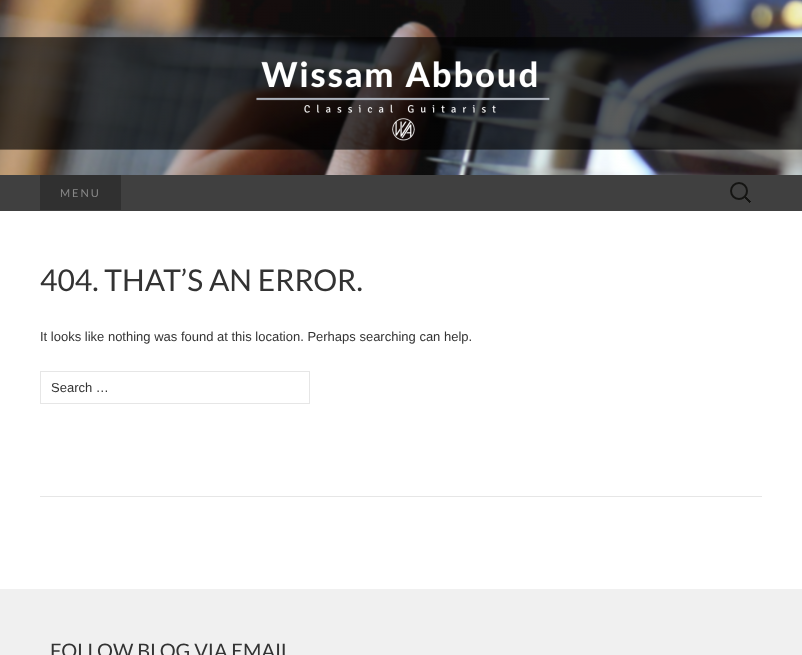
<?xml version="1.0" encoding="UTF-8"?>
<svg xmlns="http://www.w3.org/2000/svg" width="802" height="655">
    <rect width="100%" height="100%" fill="#FFFFFF"/>
    <image x="0" y="0" width="802" height="175" href="img_01.png"/>
    <rect x="0" y="175" width="802" height="36" fill="#404040"/>
    <rect x="40" y="175" width="81" height="35" fill="#303030"/>
    <text x="60" y="197" font-family="Lato" font-size="11" letter-spacing="2" fill="#888888">MENU</text>
    <image x="730" y="182" width="21" height="21" href="img_02.png"/>
    <rect x="40" y="496" width="722" height="1" fill="#E6E6E6"/>
    <text x="40" y="291" font-family="Lato" font-size="30" fill="#333333">404. THAT’S AN ERROR.</text>
    <text x="40" y="341" font-family="Liberation Sans" font-size="13" fill="#333333">It looks like nothing was found at this location. Perhaps searching can help.</text>
    <rect x="40.5" y="371.5" width="269" height="32" fill="none" stroke="#E6E6E6"/>
    <text x="51" y="392" font-family="Liberation Sans" font-size="13" fill="#333333">Search …</text>
    <rect x="0" y="589" width="802" height="66" fill="#F0F0F0"/>
    <text x="50" y="658" font-family="Lato" font-size="20" fill="#333333">FOLLOW BLOG VIA EMAIL</text>
</svg>
